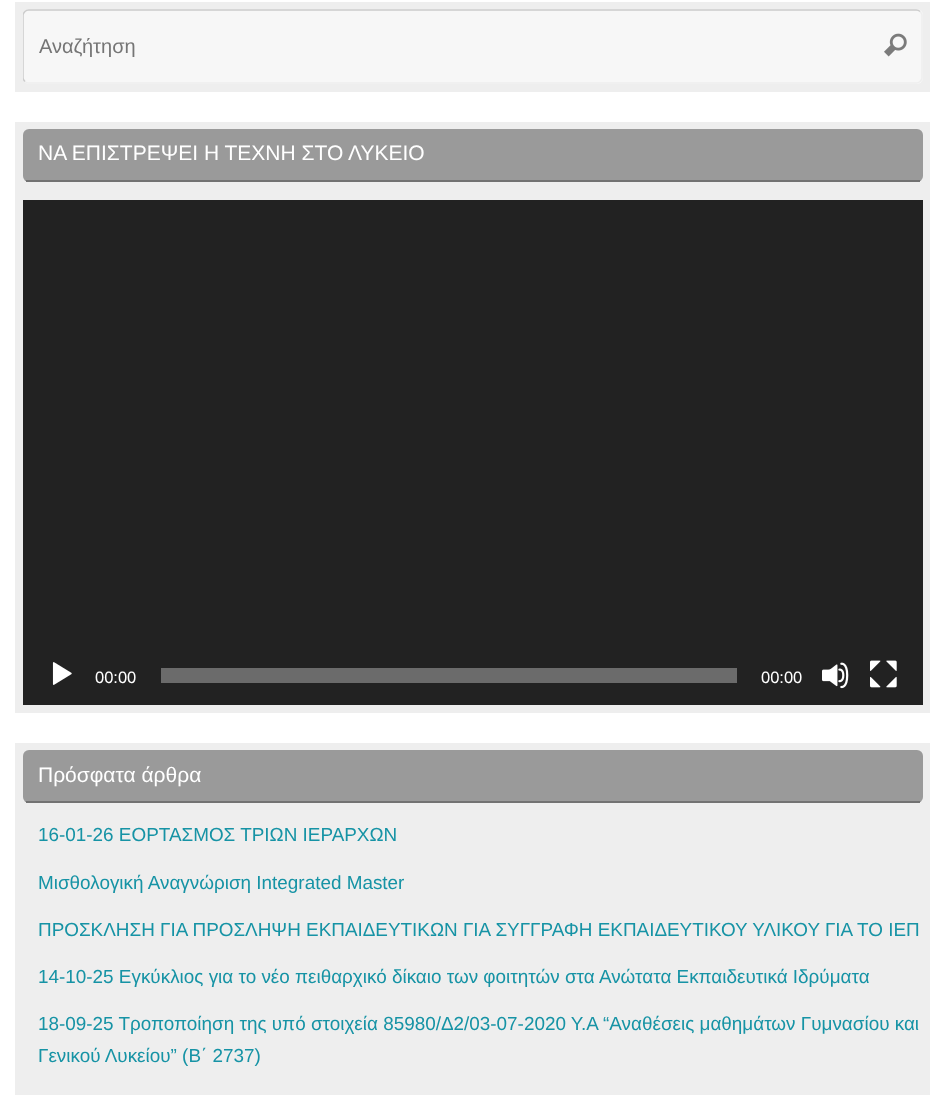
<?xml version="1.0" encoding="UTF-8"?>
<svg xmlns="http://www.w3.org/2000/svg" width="945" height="1107">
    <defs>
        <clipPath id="clip1"><rect x="23" y="9" width="900" height="75"/></clipPath>
        <clipPath id="clip2"><rect x="39" y="35" width="818" height="22"/></clipPath>
    </defs>
    <rect width="100%" height="100%" fill="#FFFFFF"/>
    <rect x="15" y="2" width="915" height="90" fill="#EEEEEE"/>
    <rect x="23" y="9" width="900" height="75" rx="6" fill="#F7F7F7"/>
    <path d="M 920 11.5 C 921 12.5 922 13.5 922 15 V 78 C 922 79.5 921 80.5 920 81.5 C 919 82.5 918 83 916.5 83 H 28.5 C 27 83 26 82.5 25 81.5" fill="none" stroke="#EEEEEE" stroke-width="1.5"/>
    <g clip-path="url(#clip1)">
        <path d="M 25 81.5 C 24 80.5 23 79.5 23 78 V 15 C 23 13.5 24 12.5 25 11.5 C 26 10.5 27 10 28.5 10 H 916.5 C 918 10 919 10.5 920 11.5" fill="none" stroke="#CCCCCC" stroke-width="1.5"/>
    </g>
    <g clip-path="url(#clip2)">
        <text x="39" y="53" font-family="Liberation Sans" font-size="20" fill="#757575">Αναζήτηση</text>
    </g>
    <image x="884" y="33" width="23" height="24" href="img_01.png"/>
    <rect x="15" y="122" width="915" height="591" fill="#EEEEEE"/>
    <rect x="23" y="129" width="900" height="53" rx="6" fill="#9A9A9A"/>
    <rect x="26" y="180" width="894" height="2" fill="#727272"/>
    <text x="38" y="160" font-family="Liberation Sans" font-size="21" fill="#FFFFFF">ΝΑ ΕΠΙΣΤΡΕΨΕΙ Η ΤΕΧΝΗ ΣΤΟ ΛΥΚΕΙΟ</text>
    <rect x="23" y="200" width="900" height="505" fill="#222222"/>
    <image x="52" y="662" width="20" height="23" href="img_02.png"/>
    <text x="95" y="683" font-family="Liberation Sans" font-size="16.5" fill="#FFFFFF">00:00</text>
    <rect x="161" y="668" width="576" height="15" fill="#6B6B6B"/>
    <text x="761" y="683" font-family="Liberation Sans" font-size="16.5" fill="#FFFFFF">00:00</text>
    <image x="822" y="662" width="27" height="27" href="img_03.png"/>
    <image x="870" y="660" width="27" height="28" href="img_04.png"/>
    <rect x="15" y="743" width="915" height="352" fill="#EEEEEE"/>
    <rect x="23" y="750" width="900" height="53" rx="6" fill="#9A9A9A"/>
    <rect x="26" y="801" width="894" height="2" fill="#727272"/>
    <text x="38" y="782" font-family="Liberation Sans" font-size="21" fill="#FFFFFF">Πρόσφατα άρθρα</text>
    <text x="38" y="841" font-family="Liberation Sans" font-size="18.9" fill="#1693A5">16-01-26 ΕΟΡΤΑΣΜΟΣ ΤΡΙΩΝ ΙΕΡΑΡΧΩΝ</text>
    <text x="38" y="889" font-family="Liberation Sans" font-size="18.9" fill="#1693A5">Μισθολογική Αναγνώριση Integrated Master</text>
    <text x="38" y="936" font-family="Liberation Sans" font-size="18.9" fill="#1693A5">ΠΡΟΣΚΛΗΣΗ ΓΙΑ ΠΡΟΣΛΗΨΗ ΕΚΠΑΙΔΕΥΤΙΚΩΝ ΓΙΑ ΣΥΓΓΡΑΦΗ ΕΚΠΑΙΔΕΥΤΙΚΟΥ ΥΛΙΚΟΥ ΓΙΑ ΤΟ ΙΕΠ</text>
    <text x="38" y="983" font-family="Liberation Sans" font-size="18.9" fill="#1693A5">14-10-25 Εγκύκλιος για το νέο πειθαρχικό δίκαιο των φοιτητών στα Ανώτατα Εκπαιδευτικά Ιδρύματα</text>
    <text font-family="Liberation Sans" font-size="18.9" fill="#1693A5">
        <tspan x="38" y="1030">18-09-25 Τροποποίηση της υπό στοιχεία 85980/Δ2/03-07-2020 Υ.Α “Αναθέσεις μαθημάτων Γυμνασίου και</tspan>
        <tspan x="38" y="1062">Γενικού Λυκείου” (Β΄ 2737)</tspan>
    </text>
</svg>
